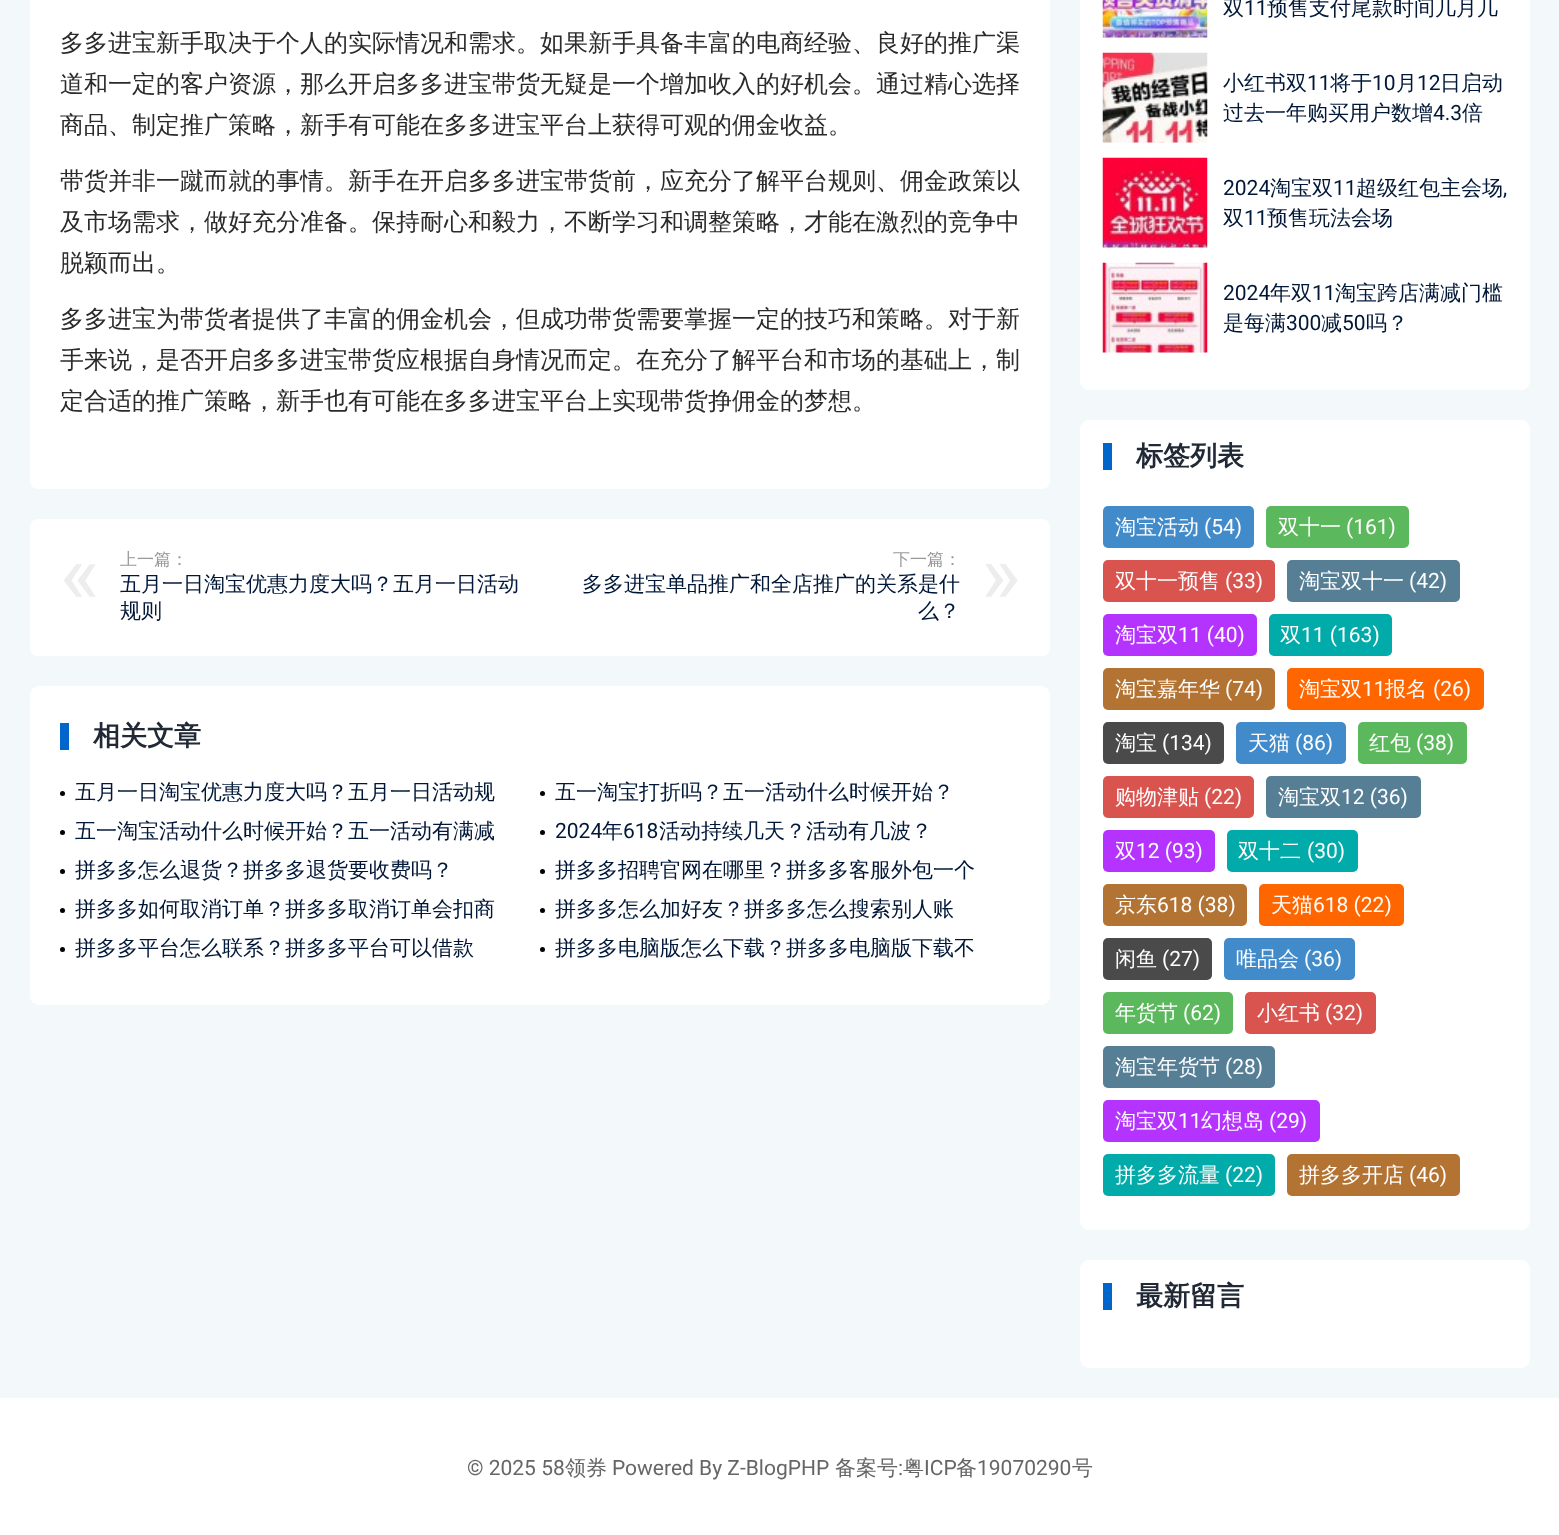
<?xml version="1.0" encoding="UTF-8"?>
<svg xmlns="http://www.w3.org/2000/svg" width="1559" height="1535">
    <rect width="100%" height="100%" fill="#F3F8FB"/>
    <rect x="30" y="-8" width="1020" height="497" rx="8" fill="#FFFFFF"/>
    <text font-family="WenQuanYi Zen Hei" font-size="24" font-weight="500" fill="#2A2A2A">
        <tspan x="60" y="51">多多进宝新手取决于个人的实际情况和需求。如果新手具备丰富的电商经验、良好的推广渠</tspan>
        <tspan x="60" y="92">道和一定的客户资源，那么开启多多进宝带货无疑是一个增加收入的好机会。通过精心选择</tspan>
        <tspan x="60" y="133">商品、制定推广策略，新手有可能在多多进宝平台上获得可观的佣金收益。</tspan>
    </text>
    <text font-family="WenQuanYi Zen Hei" font-size="24" font-weight="500" fill="#2A2A2A">
        <tspan x="60" y="189">带货并非一蹴而就的事情。新手在开启多多进宝带货前，应充分了解平台规则、佣金政策以</tspan>
        <tspan x="60" y="230">及市场需求，做好充分准备。保持耐心和毅力，不断学习和调整策略，才能在激烈的竞争中</tspan>
        <tspan x="60" y="271">脱颖而出。</tspan>
    </text>
    <text font-family="WenQuanYi Zen Hei" font-size="24" font-weight="500" fill="#2A2A2A">
        <tspan x="60" y="327">多多进宝为带货者提供了丰富的佣金机会，但成功带货需要掌握一定的技巧和策略。对于新</tspan>
        <tspan x="60" y="368">手来说，是否开启多多进宝带货应根据自身情况而定。在充分了解平台和市场的基础上，制</tspan>
        <tspan x="60" y="409">定合适的推广策略，新手也有可能在多多进宝平台上实现带货挣佣金的梦想。</tspan>
    </text>
    <rect x="30" y="519" width="1020" height="137" rx="8" fill="#FFFFFF"/>
    <text x="120" y="565" font-family="WenQuanYi Zen Hei" font-size="17" font-weight="500" fill="#999999">上一篇：</text>
    <text x="60" y="603" font-family="Roboto" font-size="84" fill="#EDEDED">«</text>
    <text font-family="WenQuanYi Zen Hei" font-size="21" font-weight="500" fill="#001737">
        <tspan x="120" y="591">五月一日淘宝优惠力度大吗？五月一日活动</tspan>
        <tspan x="120" y="618">规则</tspan>
    </text>
    <text x="893" y="565" font-family="WenQuanYi Zen Hei" font-size="17" font-weight="500" fill="#999999">下一篇：</text>
    <text x="582" y="591" font-family="WenQuanYi Zen Hei" font-size="21" font-weight="500" fill="#001737">多多进宝单品推广和全店推广的关系是什</text>
    <text x="981" y="603" font-family="Roboto" font-size="84" fill="#EDEDED">»</text>
    <text x="918" y="618" font-family="WenQuanYi Zen Hei" font-size="21" font-weight="500" fill="#001737">么？</text>
    <rect x="30" y="686" width="1020" height="319" rx="9" fill="#FFFFFF"/>
    <rect x="60" y="723" width="9" height="27" fill="#0066CC"/>
    <text x="93" y="745" font-family="WenQuanYi Zen Hei" font-size="27" font-weight="700" fill="#202935">相关文章</text>
    <circle cx="62.5" cy="793.5" r="2.5" fill="#000000"/>
    <text x="75" y="799" font-family="WenQuanYi Zen Hei" font-size="21" font-weight="500" fill="#001737">五月一日淘宝优惠力度大吗？五月一日活动规</text>
    <circle cx="542.5" cy="793.5" r="2.5" fill="#000000"/>
    <text x="555" y="799" font-family="WenQuanYi Zen Hei" font-size="21" font-weight="500" fill="#001737">五一淘宝打折吗？五一活动什么时候开始？</text>
    <circle cx="62.5" cy="832.5" r="2.5" fill="#000000"/>
    <text x="75" y="838" font-family="WenQuanYi Zen Hei" font-size="21" font-weight="500" fill="#001737">五一淘宝活动什么时候开始？五一活动有满减</text>
    <circle cx="542.5" cy="832.5" r="2.5" fill="#000000"/>
    <text x="555" y="838" font-family="Roboto" font-size="21" fill="#001737">2024</text>
    <text x="602" y="838" font-family="WenQuanYi Zen Hei" font-size="21" font-weight="500" fill="#001737">年</text>
    <text x="623" y="838" font-family="Roboto" font-size="21" fill="#001737">618</text>
    <text x="659" y="838" font-family="WenQuanYi Zen Hei" font-size="21" font-weight="500" fill="#001737">活动持续几天？活动有几波？</text>
    <circle cx="62.5" cy="871.5" r="2.5" fill="#000000"/>
    <text x="75" y="877" font-family="WenQuanYi Zen Hei" font-size="21" font-weight="500" fill="#001737">拼多多怎么退货？拼多多退货要收费吗？</text>
    <circle cx="542.5" cy="871.5" r="2.5" fill="#000000"/>
    <text x="555" y="877" font-family="WenQuanYi Zen Hei" font-size="21" font-weight="500" fill="#001737">拼多多招聘官网在哪里？拼多多客服外包一个</text>
    <circle cx="62.5" cy="910.5" r="2.5" fill="#000000"/>
    <text x="75" y="916" font-family="WenQuanYi Zen Hei" font-size="21" font-weight="500" fill="#001737">拼多多如何取消订单？拼多多取消订单会扣商</text>
    <circle cx="542.5" cy="910.5" r="2.5" fill="#000000"/>
    <text x="555" y="916" font-family="WenQuanYi Zen Hei" font-size="21" font-weight="500" fill="#001737">拼多多怎么加好友？拼多多怎么搜索别人账</text>
    <circle cx="62.5" cy="949.5" r="2.5" fill="#000000"/>
    <text x="75" y="955" font-family="WenQuanYi Zen Hei" font-size="21" font-weight="500" fill="#001737">拼多多平台怎么联系？拼多多平台可以借款</text>
    <circle cx="542.5" cy="949.5" r="2.5" fill="#000000"/>
    <text x="555" y="955" font-family="WenQuanYi Zen Hei" font-size="21" font-weight="500" fill="#001737">拼多多电脑版怎么下载？拼多多电脑版下载不</text>
    <rect x="1080" y="-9" width="450" height="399" rx="9" fill="#FFFFFF"/>
    <image x="1102" y="0" width="106" height="38" href="img_01.png"/>
    <text x="1223" y="15" font-family="WenQuanYi Zen Hei" font-size="21" font-weight="500" fill="#001737">双</text>
    <text x="1244" y="15" font-family="Roboto" font-size="21" fill="#001737">11</text>
    <text x="1267" y="15" font-family="WenQuanYi Zen Hei" font-size="21" font-weight="500" fill="#001737">预售支付尾款时间几月几</text>
    <image x="1102" y="52" width="106" height="91" href="img_02.png"/>
    <text x="1223" y="90" font-family="WenQuanYi Zen Hei" font-size="21" font-weight="500" fill="#001737">小红书双</text>
    <text x="1307" y="90" font-family="Roboto" font-size="21" fill="#001737">11</text>
    <text x="1330" y="90" font-family="WenQuanYi Zen Hei" font-size="21" font-weight="500" fill="#001737">将于</text>
    <text x="1372" y="90" font-family="Roboto" font-size="21" fill="#001737">10</text>
    <text x="1396" y="90" font-family="WenQuanYi Zen Hei" font-size="21" font-weight="500" fill="#001737">月</text>
    <text x="1417" y="90" font-family="Roboto" font-size="21" fill="#001737">12</text>
    <text x="1440" y="90" font-family="WenQuanYi Zen Hei" font-size="21" font-weight="500" fill="#001737">日启动</text>
    <text x="1223" y="120" font-family="WenQuanYi Zen Hei" font-size="21" font-weight="500" fill="#001737">过去一年购买用户数增</text>
    <text x="1433" y="120" font-family="Roboto" font-size="21" fill="#001737">4.3</text>
    <text x="1462" y="120" font-family="WenQuanYi Zen Hei" font-size="21" font-weight="500" fill="#001737">倍</text>
    <image x="1102" y="157" width="106" height="91" href="img_03.png"/>
    <text x="1223" y="195" font-family="Roboto" font-size="21" fill="#001737">2024</text>
    <text x="1270" y="195" font-family="WenQuanYi Zen Hei" font-size="21" font-weight="500" fill="#001737">淘宝双</text>
    <text x="1333" y="195" font-family="Roboto" font-size="21" fill="#001737">11</text>
    <text x="1356" y="195" font-family="WenQuanYi Zen Hei" font-size="21" font-weight="500" fill="#001737">超级红包主会场</text>
    <text x="1503" y="195" font-family="Roboto" font-size="21" fill="#001737">,</text>
    <text x="1223" y="225" font-family="WenQuanYi Zen Hei" font-size="21" font-weight="500" fill="#001737">双</text>
    <text x="1244" y="225" font-family="Roboto" font-size="21" fill="#001737">11</text>
    <text x="1267" y="225" font-family="WenQuanYi Zen Hei" font-size="21" font-weight="500" fill="#001737">预售玩法会场</text>
    <image x="1102" y="262" width="106" height="91" href="img_04.png"/>
    <text x="1223" y="300" font-family="Roboto" font-size="21" fill="#001737">2024</text>
    <text x="1270" y="300" font-family="WenQuanYi Zen Hei" font-size="21" font-weight="500" fill="#001737">年双</text>
    <text x="1312" y="300" font-family="Roboto" font-size="21" fill="#001737">11</text>
    <text x="1335" y="300" font-family="WenQuanYi Zen Hei" font-size="21" font-weight="500" fill="#001737">淘宝跨店满减门槛</text>
    <text x="1223" y="330" font-family="WenQuanYi Zen Hei" font-size="21" font-weight="500" fill="#001737">是每满</text>
    <text x="1286" y="330" font-family="Roboto" font-size="21" fill="#001737">300</text>
    <text x="1321" y="330" font-family="WenQuanYi Zen Hei" font-size="21" font-weight="500" fill="#001737">减</text>
    <text x="1342" y="330" font-family="Roboto" font-size="21" fill="#001737">50</text>
    <text x="1366" y="330" font-family="WenQuanYi Zen Hei" font-size="21" font-weight="500" fill="#001737">吗？</text>
    <rect x="1080" y="420" width="450" height="810" rx="9" fill="#FFFFFF"/>
    <rect x="1103" y="443" width="9" height="27" fill="#0066CC"/>
    <text x="1136" y="465" font-family="WenQuanYi Zen Hei" font-size="27" font-weight="700" fill="#202935">标签列表</text>
    <rect x="1103" y="506" width="151" height="42" rx="5" fill="#428BCA"/>
    <text x="1115" y="534" font-family="WenQuanYi Zen Hei" font-size="21" font-weight="500" fill="#FFFFFF">淘宝活动</text>
    <text x="1204" y="534" font-family="Roboto" font-size="21" fill="#FFFFFF">(54)</text>
    <rect x="1266" y="506" width="143" height="42" rx="5" fill="#5CB85C"/>
    <text x="1278" y="534" font-family="WenQuanYi Zen Hei" font-size="21" font-weight="500" fill="#FFFFFF">双十一</text>
    <text x="1346" y="534" font-family="Roboto" font-size="21" fill="#FFFFFF">(161)</text>
    <rect x="1103" y="560" width="172" height="42" rx="5" fill="#D9534F"/>
    <text x="1115" y="588" font-family="WenQuanYi Zen Hei" font-size="21" font-weight="500" fill="#FFFFFF">双十一预售</text>
    <text x="1225" y="588" font-family="Roboto" font-size="21" fill="#FFFFFF">(33)</text>
    <rect x="1287" y="560" width="173" height="42" rx="5" fill="#567E95"/>
    <text x="1299" y="588" font-family="WenQuanYi Zen Hei" font-size="21" font-weight="500" fill="#FFFFFF">淘宝双十一</text>
    <text x="1409" y="588" font-family="Roboto" font-size="21" fill="#FFFFFF">(42)</text>
    <rect x="1103" y="614" width="154" height="42" rx="5" fill="#B433FF"/>
    <text x="1115" y="642" font-family="WenQuanYi Zen Hei" font-size="21" font-weight="500" fill="#FFFFFF">淘宝双</text>
    <text x="1178" y="642" font-family="Roboto" font-size="21" fill="#FFFFFF">11 (40)</text>
    <rect x="1269" y="614" width="123" height="42" rx="5" fill="#00ABA9"/>
    <text x="1280" y="642" font-family="WenQuanYi Zen Hei" font-size="21" font-weight="500" fill="#FFFFFF">双</text>
    <text x="1301" y="642" font-family="Roboto" font-size="21" fill="#FFFFFF">11 (163)</text>
    <rect x="1103" y="668" width="172" height="42" rx="5" fill="#B37333"/>
    <text x="1115" y="696" font-family="WenQuanYi Zen Hei" font-size="21" font-weight="500" fill="#FFFFFF">淘宝嘉年华</text>
    <text x="1225" y="696" font-family="Roboto" font-size="21" fill="#FFFFFF">(74)</text>
    <rect x="1287" y="668" width="197" height="42" rx="5" fill="#FF6600"/>
    <text x="1299" y="696" font-family="WenQuanYi Zen Hei" font-size="21" font-weight="500" fill="#FFFFFF">淘宝双</text>
    <text x="1362" y="696" font-family="Roboto" font-size="21" fill="#FFFFFF">11</text>
    <text x="1385" y="696" font-family="WenQuanYi Zen Hei" font-size="21" font-weight="500" fill="#FFFFFF">报名</text>
    <text x="1433" y="696" font-family="Roboto" font-size="21" fill="#FFFFFF">(26)</text>
    <rect x="1103" y="722" width="121" height="42" rx="5" fill="#4A4A4A"/>
    <text x="1115" y="750" font-family="WenQuanYi Zen Hei" font-size="21" font-weight="500" fill="#FFFFFF">淘宝</text>
    <text x="1162" y="750" font-family="Roboto" font-size="21" fill="#FFFFFF">(134)</text>
    <rect x="1236" y="722" width="110" height="42" rx="5" fill="#428BCA"/>
    <text x="1248" y="750" font-family="WenQuanYi Zen Hei" font-size="21" font-weight="500" fill="#FFFFFF">天猫</text>
    <text x="1295" y="750" font-family="Roboto" font-size="21" fill="#FFFFFF">(86)</text>
    <rect x="1358" y="722" width="109" height="42" rx="5" fill="#5CB85C"/>
    <text x="1369" y="750" font-family="WenQuanYi Zen Hei" font-size="21" font-weight="500" fill="#FFFFFF">红包</text>
    <text x="1416" y="750" font-family="Roboto" font-size="21" fill="#FFFFFF">(38)</text>
    <rect x="1103" y="776" width="151" height="42" rx="5" fill="#D9534F"/>
    <text x="1115" y="804" font-family="WenQuanYi Zen Hei" font-size="21" font-weight="500" fill="#FFFFFF">购物津贴</text>
    <text x="1204" y="804" font-family="Roboto" font-size="21" fill="#FFFFFF">(22)</text>
    <rect x="1266" y="776" width="155" height="42" rx="5" fill="#567E95"/>
    <text x="1278" y="804" font-family="WenQuanYi Zen Hei" font-size="21" font-weight="500" fill="#FFFFFF">淘宝双</text>
    <text x="1341" y="804" font-family="Roboto" font-size="21" fill="#FFFFFF">12 (36)</text>
    <rect x="1103" y="830" width="112" height="42" rx="5" fill="#B433FF"/>
    <text x="1115" y="858" font-family="WenQuanYi Zen Hei" font-size="21" font-weight="500" fill="#FFFFFF">双</text>
    <text x="1136" y="858" font-family="Roboto" font-size="21" fill="#FFFFFF">12 (93)</text>
    <rect x="1227" y="830" width="131" height="42" rx="5" fill="#00ABA9"/>
    <text x="1238" y="858" font-family="WenQuanYi Zen Hei" font-size="21" font-weight="500" fill="#FFFFFF">双十二</text>
    <text x="1307" y="858" font-family="Roboto" font-size="21" fill="#FFFFFF">(30)</text>
    <rect x="1103" y="884" width="144" height="42" rx="5" fill="#B37333"/>
    <text x="1115" y="912" font-family="WenQuanYi Zen Hei" font-size="21" font-weight="500" fill="#FFFFFF">京东</text>
    <text x="1157" y="912" font-family="Roboto" font-size="21" fill="#FFFFFF">618 (38)</text>
    <rect x="1259" y="884" width="145" height="42" rx="5" fill="#FF6600"/>
    <text x="1271" y="912" font-family="WenQuanYi Zen Hei" font-size="21" font-weight="500" fill="#FFFFFF">天猫</text>
    <text x="1313" y="912" font-family="Roboto" font-size="21" fill="#FFFFFF">618 (22)</text>
    <rect x="1103" y="938" width="109" height="42" rx="5" fill="#4A4A4A"/>
    <text x="1115" y="966" font-family="WenQuanYi Zen Hei" font-size="21" font-weight="500" fill="#FFFFFF">闲鱼</text>
    <text x="1162" y="966" font-family="Roboto" font-size="21" fill="#FFFFFF">(27)</text>
    <rect x="1224" y="938" width="131" height="42" rx="5" fill="#428BCA"/>
    <text x="1236" y="966" font-family="WenQuanYi Zen Hei" font-size="21" font-weight="500" fill="#FFFFFF">唯品会</text>
    <text x="1304" y="966" font-family="Roboto" font-size="21" fill="#FFFFFF">(36)</text>
    <rect x="1103" y="992" width="130" height="42" rx="5" fill="#5CB85C"/>
    <text x="1115" y="1020" font-family="WenQuanYi Zen Hei" font-size="21" font-weight="500" fill="#FFFFFF">年货节</text>
    <text x="1183" y="1020" font-family="Roboto" font-size="21" fill="#FFFFFF">(62)</text>
    <rect x="1245" y="992" width="131" height="42" rx="5" fill="#D9534F"/>
    <text x="1257" y="1020" font-family="WenQuanYi Zen Hei" font-size="21" font-weight="500" fill="#FFFFFF">小红书</text>
    <text x="1325" y="1020" font-family="Roboto" font-size="21" fill="#FFFFFF">(32)</text>
    <rect x="1103" y="1046" width="172" height="42" rx="5" fill="#567E95"/>
    <text x="1115" y="1074" font-family="WenQuanYi Zen Hei" font-size="21" font-weight="500" fill="#FFFFFF">淘宝年货节</text>
    <text x="1225" y="1074" font-family="Roboto" font-size="21" fill="#FFFFFF">(28)</text>
    <rect x="1103" y="1100" width="217" height="42" rx="5" fill="#B433FF"/>
    <text x="1115" y="1128" font-family="WenQuanYi Zen Hei" font-size="21" font-weight="500" fill="#FFFFFF">淘宝双</text>
    <text x="1178" y="1128" font-family="Roboto" font-size="21" fill="#FFFFFF">11</text>
    <text x="1201" y="1128" font-family="WenQuanYi Zen Hei" font-size="21" font-weight="500" fill="#FFFFFF">幻想岛</text>
    <text x="1269" y="1128" font-family="Roboto" font-size="21" fill="#FFFFFF">(29)</text>
    <rect x="1103" y="1154" width="172" height="42" rx="5" fill="#00ABA9"/>
    <text x="1115" y="1182" font-family="WenQuanYi Zen Hei" font-size="21" font-weight="500" fill="#FFFFFF">拼多多流量</text>
    <text x="1225" y="1182" font-family="Roboto" font-size="21" fill="#FFFFFF">(22)</text>
    <rect x="1287" y="1154" width="173" height="42" rx="5" fill="#B37333"/>
    <text x="1299" y="1182" font-family="WenQuanYi Zen Hei" font-size="21" font-weight="500" fill="#FFFFFF">拼多多开店</text>
    <text x="1409" y="1182" font-family="Roboto" font-size="21" fill="#FFFFFF">(46)</text>
    <rect x="1080" y="1260" width="450" height="108" rx="9" fill="#FFFFFF"/>
    <rect x="1103" y="1283" width="9" height="27" fill="#0066CC"/>
    <text x="1136" y="1305" font-family="WenQuanYi Zen Hei" font-size="27" font-weight="700" fill="#202935">最新留言</text>
    <rect x="0" y="1398" width="1559" height="137" fill="#FFFFFF"/>
    <text x="467" y="1475" font-family="Roboto" font-size="21" fill="#666666">© 2025 58</text>
    <text x="565" y="1475" font-family="WenQuanYi Zen Hei" font-size="21" font-weight="500" fill="#666666">领券</text>
    <text x="612" y="1475" font-family="Roboto" font-size="21" fill="#666666">Powered By Z-BlogPHP</text>
    <text x="835" y="1475" font-family="WenQuanYi Zen Hei" font-size="21" font-weight="500" fill="#666666">备案号</text>
    <text x="898" y="1475" font-family="Roboto" font-size="21" fill="#666666">:</text>
    <text x="903" y="1475" font-family="WenQuanYi Zen Hei" font-size="21" font-weight="500" fill="#666666">粤</text>
    <text x="924" y="1475" font-family="Roboto" font-size="21" fill="#666666">ICP</text>
    <text x="956" y="1475" font-family="WenQuanYi Zen Hei" font-size="21" font-weight="500" fill="#666666">备</text>
    <text x="977" y="1475" font-family="Roboto" font-size="21" fill="#666666">19070290</text>
    <text x="1072" y="1475" font-family="WenQuanYi Zen Hei" font-size="21" font-weight="500" fill="#666666">号</text>
</svg>
